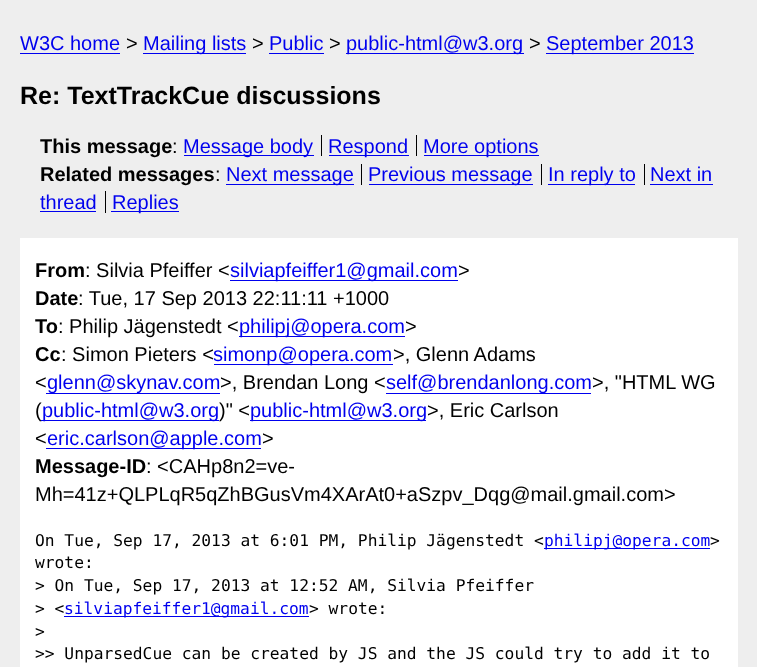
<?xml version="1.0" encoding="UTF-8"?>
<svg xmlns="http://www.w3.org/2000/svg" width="757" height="667">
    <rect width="100%" height="100%" fill="#EEEEEE"/>
    <text x="20" y="50" font-family="Liberation Sans" font-size="20" fill="#0000EE">W3C home</text>
    <rect x="20" y="53" width="100" height="1" fill="#0000EE"/>
    <text x="126" y="50" font-family="Liberation Sans" font-size="20" fill="#000000">&gt;</text>
    <rect x="143" y="53" width="103" height="1" fill="#0000EE"/>
    <text x="143" y="50" font-family="Liberation Sans" font-size="20" fill="#0000EE">Mailing lists</text>
    <text x="252" y="50" font-family="Liberation Sans" font-size="20" fill="#000000">&gt;</text>
    <text x="269" y="50" font-family="Liberation Sans" font-size="20" fill="#0000EE">Public</text>
    <rect x="269" y="53" width="55" height="1" fill="#0000EE"/>
    <text x="329" y="50" font-family="Liberation Sans" font-size="20" fill="#000000">&gt;</text>
    <rect x="346" y="53" width="178" height="1" fill="#0000EE"/>
    <text x="346" y="50" font-family="Liberation Sans" font-size="20" fill="#0000EE">public-html@w3.org</text>
    <text x="529" y="50" font-family="Liberation Sans" font-size="20" fill="#000000">&gt;</text>
    <rect x="546" y="53" width="148" height="1" fill="#0000EE"/>
    <text x="546" y="50" font-family="Liberation Sans" font-size="20" fill="#0000EE">September 2013</text>
    <text x="20" y="104" font-family="Liberation Sans" font-size="25" font-weight="700" fill="#000000">Re: TextTrackCue discussions</text>
    <text x="40" y="153" font-family="Liberation Sans" font-size="20" font-weight="700" fill="#000000">This message</text>
    <text x="172" y="153" font-family="Liberation Sans" font-size="20" fill="#000000">:</text>
    <rect x="184" y="155" width="130" height="1" fill="#0000EE"/>
    <text x="183" y="153" font-family="Liberation Sans" font-size="20" fill="#0000EE">Message body</text>
    <rect x="321" y="135" width="1" height="21" fill="#000000"/>
    <rect x="329" y="155" width="80" height="1" fill="#0000EE"/>
    <text x="328" y="153" font-family="Liberation Sans" font-size="20" fill="#0000EE">Respond</text>
    <rect x="424" y="155" width="115" height="1" fill="#0000EE"/>
    <text x="423" y="153" font-family="Liberation Sans" font-size="20" fill="#0000EE">More options</text>
    <rect x="416" y="135" width="1" height="21" fill="#000000"/>
    <text x="40" y="181" font-family="Liberation Sans" font-size="20" font-weight="700" fill="#000000">Related messages</text>
    <text x="215" y="181" font-family="Liberation Sans" font-size="20" fill="#000000">:</text>
    <rect x="226" y="184" width="128" height="1" fill="#0000EE"/>
    <text x="226" y="181" font-family="Liberation Sans" font-size="20" fill="#0000EE">Next message</text>
    <rect x="369" y="184" width="164" height="1" fill="#0000EE"/>
    <text x="368" y="181" font-family="Liberation Sans" font-size="20" fill="#0000EE">Previous message</text>
    <rect x="361" y="164" width="1" height="21" fill="#000000"/>
    <rect x="548" y="184" width="87" height="1" fill="#0000EE"/>
    <text x="548" y="181" font-family="Liberation Sans" font-size="20" fill="#0000EE">In reply to</text>
    <rect x="541" y="164" width="1" height="21" fill="#000000"/>
    <text x="650" y="181" font-family="Liberation Sans" font-size="20" fill="#0000EE">Next in</text>
    <rect x="644" y="164" width="1" height="21" fill="#000000"/>
    <rect x="650" y="184" width="63" height="1" fill="#0000EE"/>
    <text x="40" y="209" font-family="Liberation Sans" font-size="20" fill="#0000EE">thread</text>
    <rect x="105" y="191" width="1" height="22" fill="#000000"/>
    <rect x="40" y="211" width="56" height="1" fill="#0000EE"/>
    <rect x="111" y="211" width="68" height="1" fill="#0000EE"/>
    <text x="112" y="209" font-family="Liberation Sans" font-size="20" fill="#0000EE">Replies</text>
    <rect x="20" y="238" width="718" height="429" fill="#FFFFFF"/>
    <text x="35" y="277" font-family="Liberation Sans" font-size="20" font-weight="700" fill="#000000">From</text>
    <text x="85" y="277" font-family="Liberation Sans" font-size="20" fill="#000000">: Silvia Pfeiffer &lt;</text>
    <rect x="230" y="280" width="228" height="1" fill="#0000EE"/>
    <text x="230" y="277" font-family="Liberation Sans" font-size="20" fill="#0000EE">silviapfeiffer1@gmail.com</text>
    <text x="458" y="277" font-family="Liberation Sans" font-size="20" fill="#000000">&gt;</text>
    <text x="35" y="305" font-family="Liberation Sans" font-size="20" font-weight="700" fill="#000000">Date</text>
    <text x="78" y="305" font-family="Liberation Sans" font-size="20" fill="#000000">: Tue, 17 Sep 2013 22:11:11 +1000</text>
    <text x="35" y="333" font-family="Liberation Sans" font-size="20" font-weight="700" fill="#000000">To</text>
    <text x="58" y="333" font-family="Liberation Sans" font-size="20" fill="#000000">: Philip Jägenstedt &lt;</text>
    <rect x="239" y="336" width="166" height="1" fill="#0000EE"/>
    <text x="239" y="333" font-family="Liberation Sans" font-size="20" fill="#0000EE">philipj@opera.com</text>
    <text x="405" y="333" font-family="Liberation Sans" font-size="20" fill="#000000">&gt;</text>
    <text x="35" y="361" font-family="Liberation Sans" font-size="20" font-weight="700" fill="#000000">Cc</text>
    <text x="61" y="361" font-family="Liberation Sans" font-size="20" fill="#000000">: Simon Pieters &lt;</text>
    <rect x="214" y="364" width="179" height="1" fill="#0000EE"/>
    <text x="213" y="361" font-family="Liberation Sans" font-size="20" fill="#0000EE">simonp@opera.com</text>
    <text x="393" y="361" font-family="Liberation Sans" font-size="20" fill="#000000">&gt;, Glenn Adams</text>
    <text x="35" y="389" font-family="Liberation Sans" font-size="20" fill="#000000">&lt;</text>
    <rect x="46" y="393" width="174" height="1" fill="#0000EE"/>
    <text x="47" y="389" font-family="Liberation Sans" font-size="20" fill="#0000EE">glenn@skynav.com</text>
    <text x="220" y="389" font-family="Liberation Sans" font-size="20" fill="#000000">&gt;, Brendan Long &lt;</text>
    <rect x="386" y="393" width="205" height="1" fill="#0000EE"/>
    <text x="386" y="389" font-family="Liberation Sans" font-size="20" fill="#0000EE">self@brendanlong.com</text>
    <text x="592" y="389" font-family="Liberation Sans" font-size="20" fill="#000000">&gt;, "HTML WG</text>
    <text x="35" y="417" font-family="Liberation Sans" font-size="20" fill="#000000">(</text>
    <rect x="41" y="420" width="178" height="1" fill="#0000EE"/>
    <text x="42" y="417" font-family="Liberation Sans" font-size="20" fill="#0000EE">public-html@w3.org</text>
    <text x="219" y="417" font-family="Liberation Sans" font-size="20" fill="#000000">)" &lt;</text>
    <rect x="250" y="420" width="176" height="1" fill="#0000EE"/>
    <text x="250" y="417" font-family="Liberation Sans" font-size="20" fill="#0000EE">public-html@w3.org</text>
    <text x="427" y="417" font-family="Liberation Sans" font-size="20" fill="#000000">&gt;, Eric Carlson</text>
    <text x="35" y="445" font-family="Liberation Sans" font-size="20" fill="#000000">&lt;</text>
    <rect x="46" y="448" width="215" height="1" fill="#0000EE"/>
    <text x="47" y="445" font-family="Liberation Sans" font-size="20" fill="#0000EE">eric.carlson@apple.com</text>
    <text x="262" y="445" font-family="Liberation Sans" font-size="20" fill="#000000">&gt;</text>
    <text x="35" y="473" font-family="Liberation Sans" font-size="20" font-weight="700" fill="#000000">Message-ID</text>
    <text x="146" y="473" font-family="Liberation Sans" font-size="20" fill="#000000">: &lt;CAHp8n2=ve-</text>
    <text x="35" y="501" font-family="Liberation Sans" font-size="20" fill="#000000">Mh=41z+QLPLqR5qZhBGusVm4XArAt0+aSzpv_Dqg@mail.gmail.com&gt;</text>
    <text x="35" y="546" font-family="DejaVu Sans Mono" font-size="16.25" fill="#000000">On Tue, Sep 17, 2013 at 6:01 PM, Philip Jägenstedt &lt;</text>
    <rect x="544" y="548" width="166" height="1" fill="#0000EE"/>
    <text x="544" y="546" font-family="DejaVu Sans Mono" font-size="16.25" fill="#0000EE">philipj@opera.com</text>
    <text x="710" y="546" font-family="DejaVu Sans Mono" font-size="16.25" fill="#000000">&gt;</text>
    <text font-family="DejaVu Sans Mono" font-size="16.25" fill="#000000">
        <tspan x="35" y="568">wrote:</tspan>
        <tspan x="35" y="591">&gt; On Tue, Sep 17, 2013 at 12:52 AM, Silvia Pfeiffer</tspan>
        <tspan x="35" y="614">&gt; &lt;</tspan>
    </text>
    <rect x="64" y="616" width="245" height="1" fill="#0000EE"/>
    <text x="64" y="614" font-family="DejaVu Sans Mono" font-size="16.25" fill="#0000EE">silviapfeiffer1@gmail.com</text>
    <text x="309" y="614" font-family="DejaVu Sans Mono" font-size="16.25" fill="#000000">&gt; wrote:</text>
    <text font-family="DejaVu Sans Mono" font-size="16.25" fill="#000000">
        <tspan x="35" y="637">&gt;</tspan>
        <tspan x="35" y="659">&gt;&gt; UnparsedCue can be created by JS and the JS could try to add it to</tspan>
    </text>
</svg>
